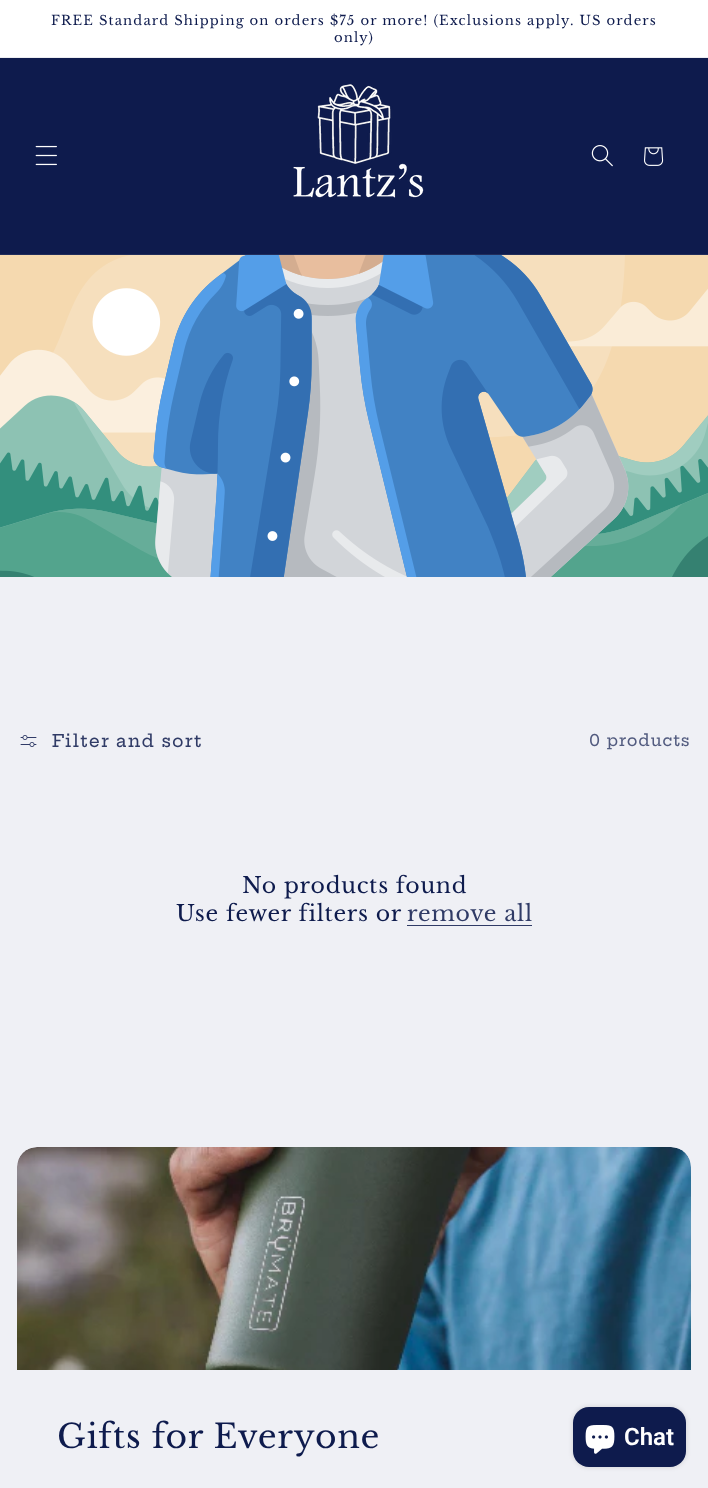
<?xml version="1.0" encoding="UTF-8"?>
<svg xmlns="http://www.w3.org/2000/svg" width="708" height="1488">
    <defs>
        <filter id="blur1" x="-50%" y="-200%" width="200%" height="500%"><feGaussianBlur stdDeviation="2.5"/></filter>
    </defs>
    <rect width="100%" height="100%" fill="#EFF0F5"/>
    <rect x="0" y="0" width="708" height="57" fill="#FFFFFF"/>
    <rect x="0" y="57" width="708" height="1" fill="#ECEDF1"/>
    <text x="51" y="25" font-family="Libre Baskerville" font-size="13.2" letter-spacing="1.15" fill="#0E1B4D">FREE Standard Shipping on orders $75 or more! (Exclusions apply. US orders</text>
    <text x="334" y="42" font-family="Libre Baskerville" font-size="13.2" letter-spacing="1.15" fill="#0E1B4D">only)</text>
    <rect x="0" y="58" width="708" height="196" fill="#0E1B4D"/>
    <rect x="0" y="254" width="708" height="1" fill="#212D5B"/>
    <image x="35" y="145" width="22" height="21" href="img_01.png"/>
    <image x="293" y="84" width="131" height="114" href="img_02.png"/>
    <image x="591" y="145" width="22" height="22" href="img_03.png"/>
    <image x="644" y="147" width="20" height="19" href="img_04.png"/>
    <image x="0" y="255" width="708" height="322" href="img_05.png"/>
    <image x="20" y="735" width="17" height="12" href="img_06.png"/>
    <text x="52" y="747" font-family="Hepta Slab" font-size="17.25" font-weight="500" letter-spacing="1.15" fill="#303B66">Filter and sort</text>
    <text x="589" y="746" font-family="Hepta Slab" font-size="16" font-weight="500" letter-spacing="0.75" fill="#525B7F">0 products</text>
    <text x="242" y="893" font-family="Libre Baskerville" font-size="22" letter-spacing="0.7" fill="#0E1B4D">No products found</text>
    <text x="176" y="921" font-family="Libre Baskerville" font-size="22" letter-spacing="0.7" fill="#0E1B4D">Use fewer filters or</text>
    <text x="407" y="921" font-family="Libre Baskerville" font-size="22" letter-spacing="0.7" fill="#303B66">remove all</text>
    <rect x="407" y="925" width="125" height="1" fill="#303B66"/>
    <image x="17" y="1147" width="674" height="223" href="img_07.png"/>
    <text x="57" y="1448" font-family="Libre Baskerville" font-size="33" letter-spacing="0.7" fill="#0E1B4D">Gifts for Everyone</text>
    <rect x="573" y="1407" width="113" height="60" rx="16" fill="#000000" fill-opacity="0.15" filter="url(#blur1)"/>
    <rect x="573" y="1407" width="113" height="60" rx="16" fill="#0E1B4D"/>
    <image x="585" y="1425" width="30" height="29" href="img_08.png"/>
    <text x="624" y="1445" font-family="Roboto" font-size="24" font-weight="600" fill="#FFFFFF">Chat</text>
</svg>
